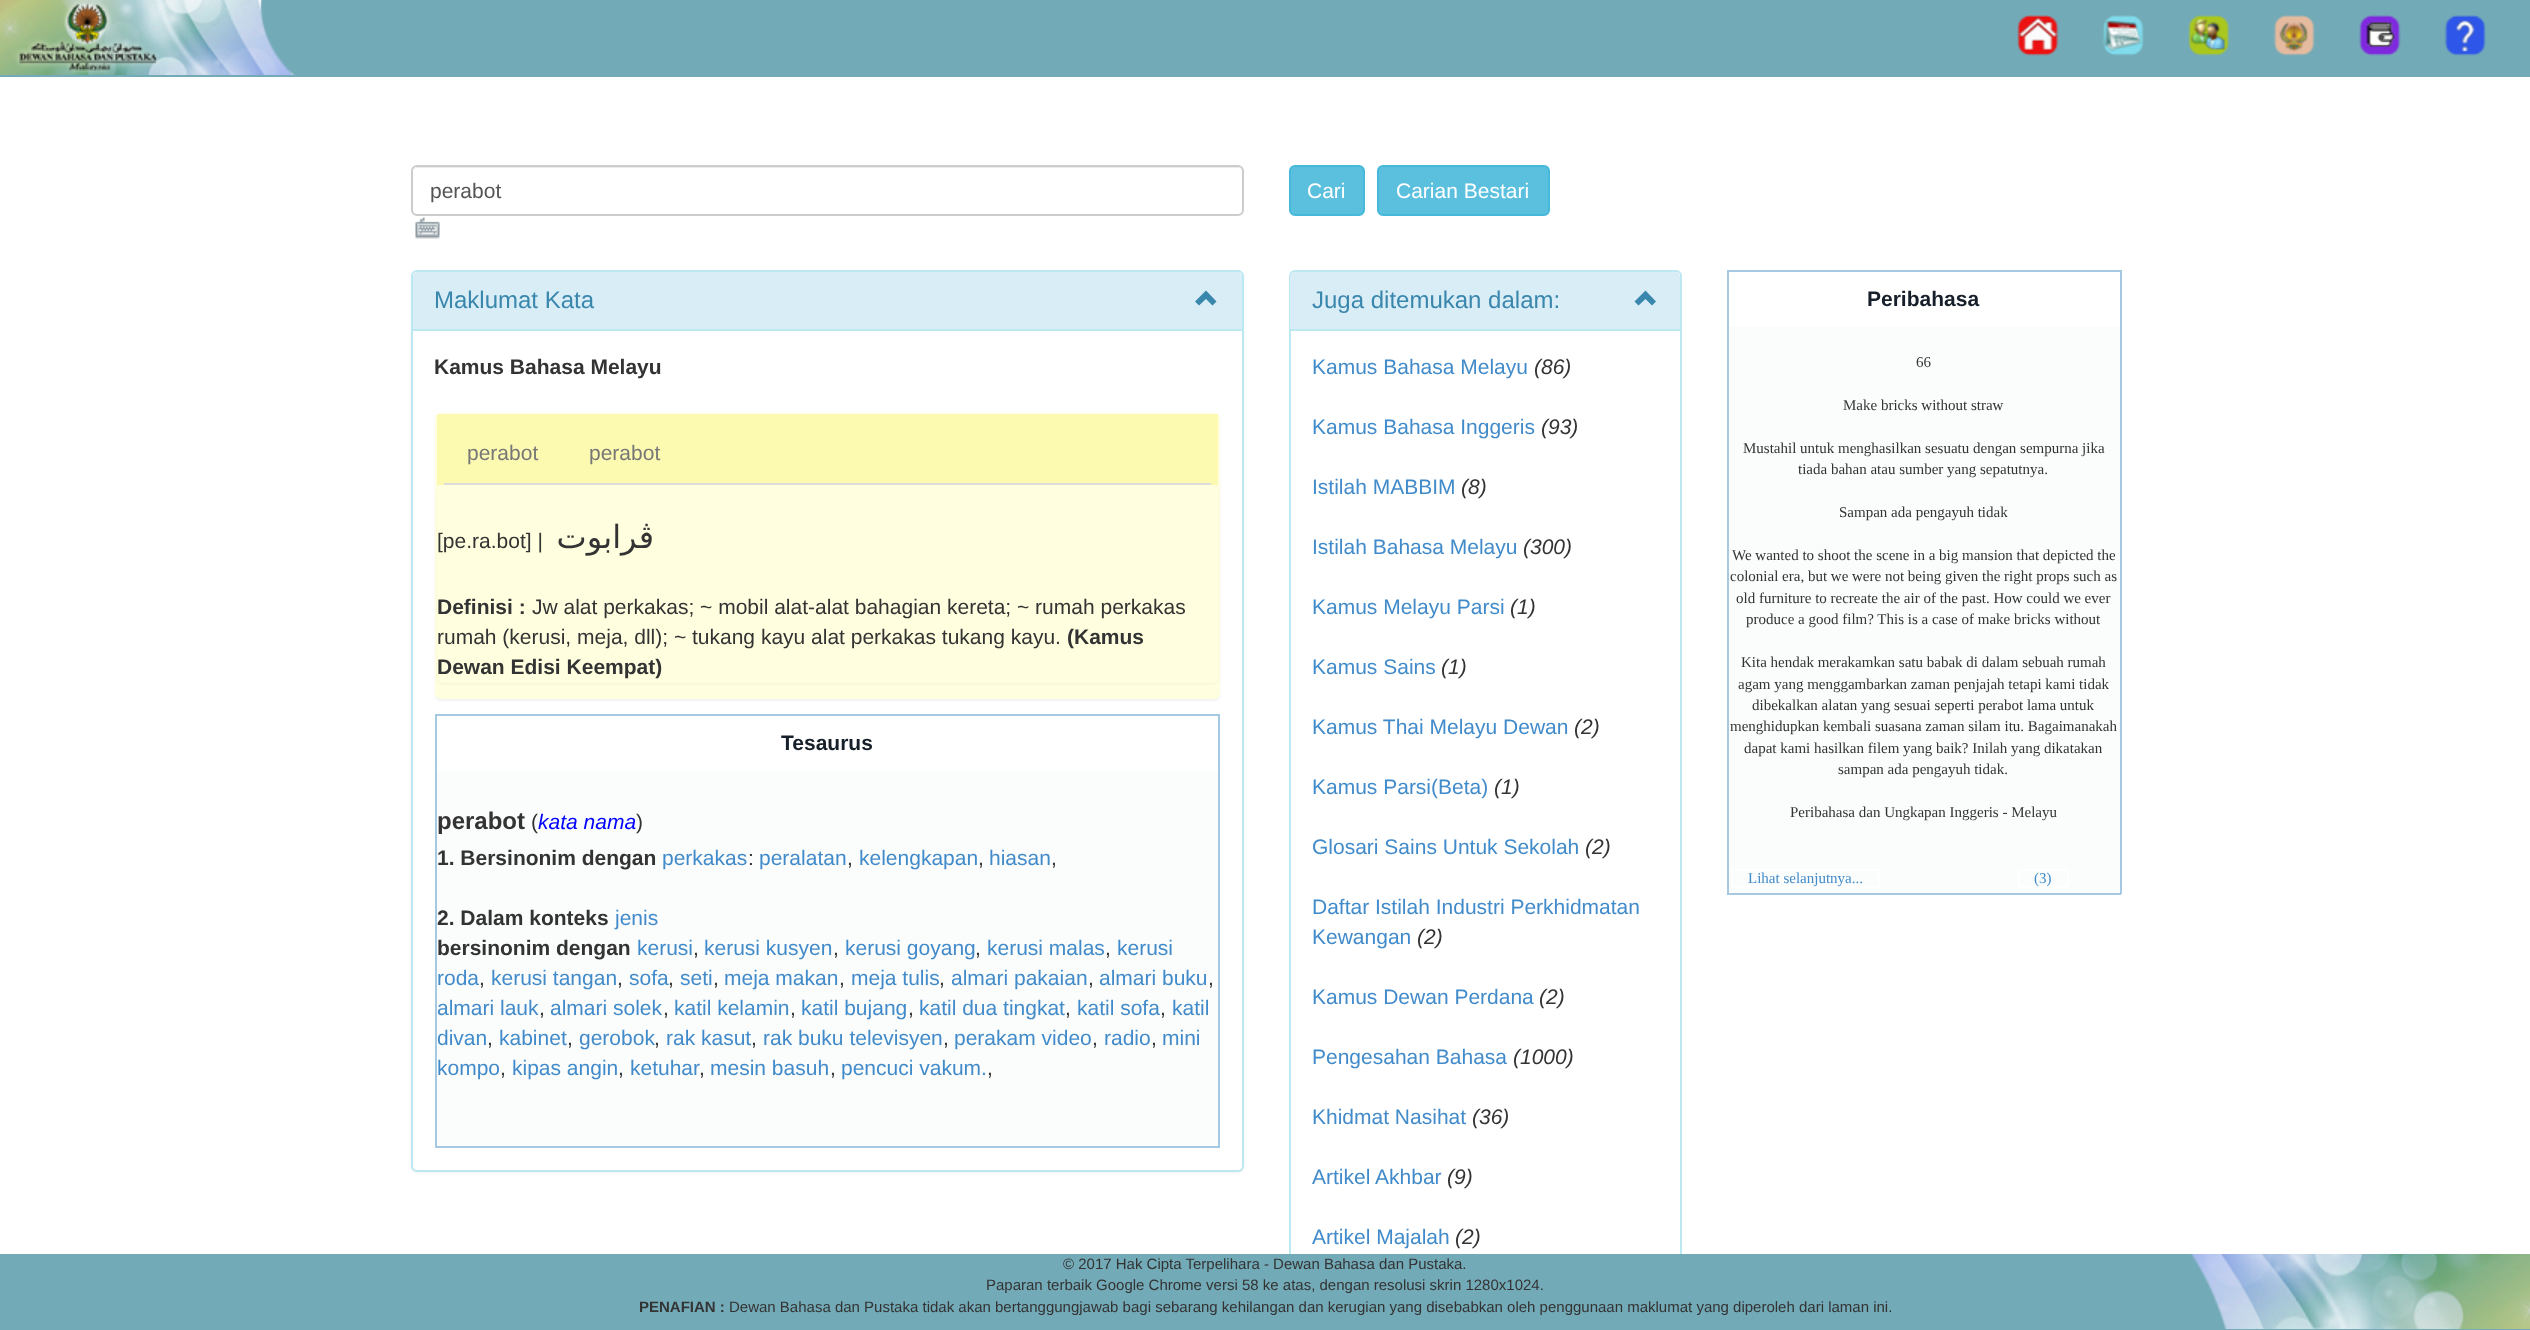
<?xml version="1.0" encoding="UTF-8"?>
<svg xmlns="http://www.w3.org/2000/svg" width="2530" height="1330">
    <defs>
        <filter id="blur1" x="-50%" y="-200%" width="200%" height="500%"><feGaussianBlur stdDeviation="1"/></filter>
    </defs>
    <rect width="100%" height="100%" fill="#FFFFFF"/>
    <rect x="0" y="0" width="2530" height="77" fill="#73AAB7"/>
    <image x="0" y="0" width="295" height="75" href="img_01.png"/>
    <image x="2017" y="15" width="42" height="41" href="img_02.png"/>
    <image x="2102" y="15" width="42" height="41" href="img_03.png"/>
    <image x="2188" y="15" width="42" height="41" href="img_04.png"/>
    <image x="2273" y="15" width="42" height="41" href="img_05.png"/>
    <image x="2359" y="15" width="42" height="41" href="img_06.png"/>
    <image x="2444" y="15" width="42" height="41" href="img_07.png"/>
    <path d="M 417 168 H 1238 C 1240 168 1242 170 1242 172 C 1242 169 1240 167 1237 167 H 418 C 416 167 415 168 414 169 Z" fill="#ECECEC"/>
    <rect x="412" y="166" width="831" height="49" rx="5" fill="none" stroke="#CCCCCC" stroke-width="2"/>
    <text x="430" y="198" font-family="Liberation Sans" font-size="21" fill="#555555">perabot</text>
    <image x="415" y="217" width="25" height="22" href="img_08.png"/>
    <rect x="1290" y="166" width="74" height="49" rx="5" fill="#5BC0DE" stroke="#46B8DA" stroke-width="2"/>
    <text x="1307" y="198" font-family="Liberation Sans" font-size="21" fill="#FFFFFF">Cari</text>
    <rect x="1378" y="166" width="171" height="49" rx="5" fill="#5BC0DE" stroke="#46B8DA" stroke-width="2"/>
    <text x="1396" y="198" font-family="Liberation Sans" font-size="21" fill="#FFFFFF">Carian Bestari</text>
    <rect x="411" y="272" width="833" height="901" rx="6" fill="#000000" fill-opacity="0.05" filter="url(#blur1)"/>
    <rect x="412" y="271" width="831" height="900" rx="5" fill="#FFFFFF" stroke="#BCE8F1" stroke-width="2"/>
    <path d="M 418 272 H 1237 C 1240 272 1242 274 1242 277 V 330 H 413 V 277 C 413 274 415 272 418 272 Z" fill="#D9EDF7"/>
    <rect x="413" y="329" width="829" height="2" fill="#BCE8F1"/>
    <text x="434" y="308" font-family="Liberation Sans" font-size="24" fill="#3A87AD">Maklumat Kata</text>
    <path d="M 1212.5 305.5 L 1216.5 301.5 L 1206 290.5 L 1195 301.5 L 1199 305.5 L 1206 299 Z" fill="#3A87AD"/>
    <text x="434" y="374" font-family="Liberation Sans" font-size="21" font-weight="700" fill="#333333">Kamus Bahasa Melayu</text>
    <rect x="435" y="414" width="785" height="287" rx="6" fill="#000000" fill-opacity="0.05" filter="url(#blur1)"/>
    <rect x="435" y="413" width="785" height="286" rx="6" fill="#FFFFE0"/>
    <rect x="437" y="414" width="781" height="71" fill="#FCF9B0"/>
    <rect x="444" y="483" width="767" height="2" fill="#DDDDDD"/>
    <text x="467" y="460" font-family="Liberation Sans" font-size="21" fill="#777777">perabot</text>
    <text x="589" y="460" font-family="Liberation Sans" font-size="21" fill="#777777">perabot</text>
    <rect x="437" y="486" width="781" height="198" rx="6" fill="#000000" fill-opacity="0.05" filter="url(#blur1)"/>
    <rect x="437" y="485" width="781" height="198" rx="6" fill="#FFFFE0"/>
    <text x="437" y="548" font-family="Liberation Sans" font-size="21" fill="#333333">[pe.ra.bot] |</text>
    <text x="654" y="548" font-family="DejaVu Sans" font-size="32" direction="rtl" fill="#333333">ڤرابوت</text>
    <text x="437" y="614" font-family="Liberation Sans" font-size="21" font-weight="700" fill="#333333">Definisi :</text>
    <text x="532" y="614" font-family="Liberation Sans" font-size="21" fill="#333333">Jw alat perkakas; ~ mobil alat-alat bahagian kereta; ~ rumah perkakas</text>
    <text x="437" y="644" font-family="Liberation Sans" font-size="21" fill="#333333">rumah (kerusi, meja, dll); ~ tukang kayu alat perkakas tukang kayu.</text>
    <text x="1067" y="644" font-family="Liberation Sans" font-size="21" font-weight="700" fill="#333333">(Kamus</text>
    <text x="437" y="674" font-family="Liberation Sans" font-size="21" font-weight="700" fill="#333333">Dewan Edisi Keempat)</text>
    <rect x="435" y="714" width="785" height="2" fill="#A6C9E2"/>
    <rect x="1218" y="714" width="2" height="434" fill="#A6C9E2"/>
    <rect x="435" y="1146" width="785" height="2" fill="#A6C9E2"/>
    <rect x="435" y="714" width="2" height="434" fill="#A6C9E2"/>
    <text x="781" y="750" font-family="Liberation Sans" font-size="21" font-weight="700" fill="#17202A">Tesaurus</text>
    <rect x="437" y="771" width="781" height="375" fill="#FBFCFC"/>
    <text x="437" y="829" font-family="Liberation Sans" font-size="24" font-weight="700" fill="#333333">perabot</text>
    <text x="531" y="829" font-family="Liberation Sans" font-size="21" fill="#333333">(</text>
    <text x="538" y="829" font-family="Liberation Sans" font-size="21" font-style="italic" fill="#0000FF">kata nama</text>
    <text x="636" y="829" font-family="Liberation Sans" font-size="21" fill="#333333">)</text>
    <text x="437" y="865" font-family="Liberation Sans" font-size="21" font-weight="700" fill="#333333">1. Bersinonim dengan</text>
    <text x="662" y="865" font-family="Liberation Sans" font-size="21" fill="#428BCA">perkakas</text>
    <text x="748" y="865" font-family="Liberation Sans" font-size="21" fill="#333333">:</text>
    <text x="759" y="865" font-family="Liberation Sans" font-size="21" fill="#428BCA">peralatan</text>
    <text x="847" y="865" font-family="Liberation Sans" font-size="21" fill="#333333">,</text>
    <text x="859" y="865" font-family="Liberation Sans" font-size="21" fill="#428BCA">kelengkapan</text>
    <text x="978" y="865" font-family="Liberation Sans" font-size="21" fill="#333333">,</text>
    <text x="989" y="865" font-family="Liberation Sans" font-size="21" fill="#428BCA">hiasan</text>
    <text x="1051" y="865" font-family="Liberation Sans" font-size="21" fill="#333333">,</text>
    <text x="437" y="925" font-family="Liberation Sans" font-size="21" font-weight="700" fill="#333333">2. Dalam konteks</text>
    <text x="615" y="925" font-family="Liberation Sans" font-size="21" fill="#428BCA">jenis</text>
    <text x="437" y="955" font-family="Liberation Sans" font-size="21" font-weight="700" fill="#333333">bersinonim dengan</text>
    <text x="637" y="955" font-family="Liberation Sans" font-size="21" fill="#428BCA">kerusi</text>
    <text x="693" y="955" font-family="Liberation Sans" font-size="21" fill="#333333">,</text>
    <text x="704" y="955" font-family="Liberation Sans" font-size="21" fill="#428BCA">kerusi kusyen</text>
    <text x="833" y="955" font-family="Liberation Sans" font-size="21" fill="#333333">,</text>
    <text x="845" y="955" font-family="Liberation Sans" font-size="21" fill="#428BCA">kerusi goyang</text>
    <text x="975" y="955" font-family="Liberation Sans" font-size="21" fill="#333333">,</text>
    <text x="987" y="955" font-family="Liberation Sans" font-size="21" fill="#428BCA">kerusi malas</text>
    <text x="1105" y="955" font-family="Liberation Sans" font-size="21" fill="#333333">,</text>
    <text x="1117" y="955" font-family="Liberation Sans" font-size="21" fill="#428BCA">kerusi</text>
    <text x="437" y="985" font-family="Liberation Sans" font-size="21" fill="#428BCA">roda</text>
    <text x="479" y="985" font-family="Liberation Sans" font-size="21" fill="#333333">,</text>
    <text x="491" y="985" font-family="Liberation Sans" font-size="21" fill="#428BCA">kerusi tangan</text>
    <text x="617" y="985" font-family="Liberation Sans" font-size="21" fill="#333333">,</text>
    <text x="629" y="985" font-family="Liberation Sans" font-size="21" fill="#428BCA">sofa</text>
    <text x="668" y="985" font-family="Liberation Sans" font-size="21" fill="#333333">,</text>
    <text x="680" y="985" font-family="Liberation Sans" font-size="21" fill="#428BCA">seti</text>
    <text x="713" y="985" font-family="Liberation Sans" font-size="21" fill="#333333">,</text>
    <text x="724" y="985" font-family="Liberation Sans" font-size="21" fill="#428BCA">meja makan</text>
    <text x="839" y="985" font-family="Liberation Sans" font-size="21" fill="#333333">,</text>
    <text x="851" y="985" font-family="Liberation Sans" font-size="21" fill="#428BCA">meja tulis</text>
    <text x="939" y="985" font-family="Liberation Sans" font-size="21" fill="#333333">,</text>
    <text x="951" y="985" font-family="Liberation Sans" font-size="21" fill="#428BCA">almari pakaian</text>
    <text x="1088" y="985" font-family="Liberation Sans" font-size="21" fill="#333333">,</text>
    <text x="1099" y="985" font-family="Liberation Sans" font-size="21" fill="#428BCA">almari buku</text>
    <text x="1208" y="985" font-family="Liberation Sans" font-size="21" fill="#333333">,</text>
    <text x="437" y="1015" font-family="Liberation Sans" font-size="21" fill="#428BCA">almari lauk</text>
    <text x="539" y="1015" font-family="Liberation Sans" font-size="21" fill="#333333">,</text>
    <text x="550" y="1015" font-family="Liberation Sans" font-size="21" fill="#428BCA">almari solek</text>
    <text x="663" y="1015" font-family="Liberation Sans" font-size="21" fill="#333333">,</text>
    <text x="674" y="1015" font-family="Liberation Sans" font-size="21" fill="#428BCA">katil kelamin</text>
    <text x="790" y="1015" font-family="Liberation Sans" font-size="21" fill="#333333">,</text>
    <text x="801" y="1015" font-family="Liberation Sans" font-size="21" fill="#428BCA">katil bujang</text>
    <text x="908" y="1015" font-family="Liberation Sans" font-size="21" fill="#333333">,</text>
    <text x="919" y="1015" font-family="Liberation Sans" font-size="21" fill="#428BCA">katil dua tingkat</text>
    <text x="1065" y="1015" font-family="Liberation Sans" font-size="21" fill="#333333">,</text>
    <text x="1077" y="1015" font-family="Liberation Sans" font-size="21" fill="#428BCA">katil sofa</text>
    <text x="1160" y="1015" font-family="Liberation Sans" font-size="21" fill="#333333">,</text>
    <text x="1172" y="1015" font-family="Liberation Sans" font-size="21" fill="#428BCA">katil</text>
    <text x="437" y="1045" font-family="Liberation Sans" font-size="21" fill="#428BCA">divan</text>
    <text x="487" y="1045" font-family="Liberation Sans" font-size="21" fill="#333333">,</text>
    <text x="499" y="1045" font-family="Liberation Sans" font-size="21" fill="#428BCA">kabinet</text>
    <text x="567" y="1045" font-family="Liberation Sans" font-size="21" fill="#333333">,</text>
    <text x="579" y="1045" font-family="Liberation Sans" font-size="21" fill="#428BCA">gerobok</text>
    <text x="654" y="1045" font-family="Liberation Sans" font-size="21" fill="#333333">,</text>
    <text x="666" y="1045" font-family="Liberation Sans" font-size="21" fill="#428BCA">rak kasut</text>
    <text x="751" y="1045" font-family="Liberation Sans" font-size="21" fill="#333333">,</text>
    <text x="763" y="1045" font-family="Liberation Sans" font-size="21" fill="#428BCA">rak buku televisyen</text>
    <text x="943" y="1045" font-family="Liberation Sans" font-size="21" fill="#333333">,</text>
    <text x="954" y="1045" font-family="Liberation Sans" font-size="21" fill="#428BCA">perakam video</text>
    <text x="1092" y="1045" font-family="Liberation Sans" font-size="21" fill="#333333">,</text>
    <text x="1104" y="1045" font-family="Liberation Sans" font-size="21" fill="#428BCA">radio</text>
    <text x="1151" y="1045" font-family="Liberation Sans" font-size="21" fill="#333333">,</text>
    <text x="1162" y="1045" font-family="Liberation Sans" font-size="21" fill="#428BCA">mini</text>
    <text x="437" y="1075" font-family="Liberation Sans" font-size="21" fill="#428BCA">kompo</text>
    <text x="500" y="1075" font-family="Liberation Sans" font-size="21" fill="#333333">,</text>
    <text x="512" y="1075" font-family="Liberation Sans" font-size="21" fill="#428BCA">kipas angin</text>
    <text x="618" y="1075" font-family="Liberation Sans" font-size="21" fill="#333333">,</text>
    <text x="630" y="1075" font-family="Liberation Sans" font-size="21" fill="#428BCA">ketuhar</text>
    <text x="699" y="1075" font-family="Liberation Sans" font-size="21" fill="#333333">,</text>
    <text x="710" y="1075" font-family="Liberation Sans" font-size="21" fill="#428BCA">mesin basuh</text>
    <text x="830" y="1075" font-family="Liberation Sans" font-size="21" fill="#333333">,</text>
    <text x="841" y="1075" font-family="Liberation Sans" font-size="21" fill="#428BCA">pencuci vakum.</text>
    <text x="987" y="1075" font-family="Liberation Sans" font-size="21" fill="#333333">,</text>
    <rect x="1290" y="271" width="391" height="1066" rx="5" fill="none" stroke="#BCE8F1" stroke-width="2"/>
    <path d="M 1295 272 H 1675 C 1678 272 1680 274 1680 277 V 330 H 1290 V 277 C 1290 274 1292 272 1295 272 Z" fill="#D9EDF7"/>
    <rect x="1290" y="329" width="390" height="2" fill="#BCE8F1"/>
    <text x="1312" y="308" font-family="Liberation Sans" font-size="24" fill="#3A87AD">Juga ditemukan dalam:</text>
    <path d="M 1652 305.5 L 1656 301.5 L 1645.5 290.5 L 1634.5 301.5 L 1638.5 305.5 L 1645.5 299 Z" fill="#3A87AD"/>
    <text x="1312" y="374" font-family="Liberation Sans" font-size="21" fill="#428BCA">Kamus Bahasa Melayu</text>
    <text x="1534" y="374" font-family="Liberation Sans" font-size="21" font-style="italic" fill="#333333">(86)</text>
    <text x="1312" y="434" font-family="Liberation Sans" font-size="21" fill="#428BCA">Kamus Bahasa Inggeris</text>
    <text x="1541" y="434" font-family="Liberation Sans" font-size="21" font-style="italic" fill="#333333">(93)</text>
    <text x="1312" y="494" font-family="Liberation Sans" font-size="21" fill="#428BCA">Istilah MABBIM</text>
    <text x="1461" y="494" font-family="Liberation Sans" font-size="21" font-style="italic" fill="#333333">(8)</text>
    <text x="1312" y="554" font-family="Liberation Sans" font-size="21" fill="#428BCA">Istilah Bahasa Melayu</text>
    <text x="1523" y="554" font-family="Liberation Sans" font-size="21" font-style="italic" fill="#333333">(300)</text>
    <text x="1312" y="614" font-family="Liberation Sans" font-size="21" fill="#428BCA">Kamus Melayu Parsi</text>
    <text x="1510" y="614" font-family="Liberation Sans" font-size="21" font-style="italic" fill="#333333">(1)</text>
    <text x="1312" y="674" font-family="Liberation Sans" font-size="21" fill="#428BCA">Kamus Sains</text>
    <text x="1441" y="674" font-family="Liberation Sans" font-size="21" font-style="italic" fill="#333333">(1)</text>
    <text x="1312" y="734" font-family="Liberation Sans" font-size="21" fill="#428BCA">Kamus Thai Melayu Dewan</text>
    <text x="1574" y="734" font-family="Liberation Sans" font-size="21" font-style="italic" fill="#333333">(2)</text>
    <text x="1312" y="794" font-family="Liberation Sans" font-size="21" fill="#428BCA">Kamus Parsi(Beta)</text>
    <text x="1494" y="794" font-family="Liberation Sans" font-size="21" font-style="italic" fill="#333333">(1)</text>
    <text x="1312" y="854" font-family="Liberation Sans" font-size="21" fill="#428BCA">Glosari Sains Untuk Sekolah</text>
    <text x="1585" y="854" font-family="Liberation Sans" font-size="21" font-style="italic" fill="#333333">(2)</text>
    <text font-family="Liberation Sans" font-size="21" fill="#428BCA">
        <tspan x="1312" y="914">Daftar Istilah Industri Perkhidmatan</tspan>
        <tspan x="1312" y="944">Kewangan</tspan>
    </text>
    <text x="1417" y="944" font-family="Liberation Sans" font-size="21" font-style="italic" fill="#333333">(2)</text>
    <text x="1312" y="1004" font-family="Liberation Sans" font-size="21" fill="#428BCA">Kamus Dewan Perdana</text>
    <text x="1539" y="1004" font-family="Liberation Sans" font-size="21" font-style="italic" fill="#333333">(2)</text>
    <text x="1312" y="1064" font-family="Liberation Sans" font-size="21" fill="#428BCA">Pengesahan Bahasa</text>
    <text x="1513" y="1064" font-family="Liberation Sans" font-size="21" font-style="italic" fill="#333333">(1000)</text>
    <text x="1312" y="1124" font-family="Liberation Sans" font-size="21" fill="#428BCA">Khidmat Nasihat</text>
    <text x="1472" y="1124" font-family="Liberation Sans" font-size="21" font-style="italic" fill="#333333">(36)</text>
    <text x="1312" y="1184" font-family="Liberation Sans" font-size="21" fill="#428BCA">Artikel Akhbar</text>
    <text x="1447" y="1184" font-family="Liberation Sans" font-size="21" font-style="italic" fill="#333333">(9)</text>
    <text x="1312" y="1244" font-family="Liberation Sans" font-size="21" fill="#428BCA">Artikel Majalah</text>
    <text x="1455" y="1244" font-family="Liberation Sans" font-size="21" font-style="italic" fill="#333333">(2)</text>
    <rect x="1727" y="270" width="394" height="2" fill="#A6C9E2"/>
    <rect x="2120" y="270" width="2" height="624" fill="#A6C9E2"/>
    <rect x="1727" y="893" width="394" height="2" fill="#A6C9E2"/>
    <rect x="1728" y="327" width="392" height="3" fill="#FBFCFC"/>
    <rect x="1727" y="270" width="2" height="624" fill="#A6C9E2"/>
    <text x="1867" y="306" font-family="Liberation Sans" font-size="21" font-weight="700" fill="#17202A">Peribahasa</text>
    <rect x="1729" y="330" width="391" height="563" fill="#FBFCFC"/>
    <text x="1916" y="367" font-family="Liberation Serif" font-size="15" fill="#333333">66</text>
    <text x="1843" y="410" font-family="Liberation Serif" font-size="15" fill="#333333">Make bricks without straw</text>
    <text x="1743" y="453" font-family="Liberation Serif" font-size="15" fill="#333333">Mustahil untuk menghasilkan sesuatu dengan sempurna jika</text>
    <text x="1798" y="474" font-family="Liberation Serif" font-size="15" fill="#333333">tiada bahan atau sumber yang sepatutnya.</text>
    <text x="1839" y="517" font-family="Liberation Serif" font-size="15" fill="#333333">Sampan ada pengayuh tidak</text>
    <text x="1732" y="560" font-family="Liberation Serif" font-size="15" fill="#333333">We wanted to shoot the scene in a big mansion that depicted the</text>
    <text x="1730" y="581" font-family="Liberation Serif" font-size="15" fill="#333333">colonial era, but we were not being given the right props such as</text>
    <text x="1736" y="603" font-family="Liberation Serif" font-size="15" fill="#333333">old furniture to recreate the air of the past. How could we ever</text>
    <text x="1746" y="624" font-family="Liberation Serif" font-size="15" fill="#333333">produce a good film? This is a case of make bricks without</text>
    <text x="1741" y="667" font-family="Liberation Serif" font-size="15" fill="#333333">Kita hendak merakamkan satu babak di dalam sebuah rumah</text>
    <text x="1738" y="689" font-family="Liberation Serif" font-size="15" fill="#333333">agam yang menggambarkan zaman penjajah tetapi kami tidak</text>
    <text x="1752" y="710" font-family="Liberation Serif" font-size="15" fill="#333333">dibekalkan alatan yang sesuai seperti perabot lama untuk</text>
    <text x="1730" y="731" font-family="Liberation Serif" font-size="15" fill="#333333">menghidupkan kembali suasana zaman silam itu. Bagaimanakah</text>
    <text x="1744" y="753" font-family="Liberation Serif" font-size="15" fill="#333333">dapat kami hasilkan filem yang baik? Inilah yang dikatakan</text>
    <text x="1838" y="774" font-family="Liberation Serif" font-size="15" fill="#333333">sampan ada pengayuh tidak.</text>
    <text x="1790" y="817" font-family="Liberation Serif" font-size="15" fill="#333333">Peribahasa dan Ungkapan Inggeris - Melayu</text>
    <rect x="1732" y="870" width="147" height="17" fill="none" stroke="#FFFFFF" stroke-width="2"/>
    <text x="1748" y="883" font-family="Liberation Serif" font-size="15" fill="#428BCA">Lihat selanjutnya...</text>
    <rect x="2019" y="870" width="49" height="17" fill="none" stroke="#FFFFFF" stroke-width="2"/>
    <text x="2034" y="883" font-family="Liberation Serif" font-size="15" fill="#428BCA">(3)</text>
    <rect x="0" y="1254" width="2530" height="76" fill="#73AAB7"/>
    <image x="2191" y="1254" width="339" height="75" href="img_09.png"/>
    <text x="1063" y="1269" font-family="Liberation Sans" font-size="15" fill="#333333">© 2017 Hak Cipta Terpelihara - Dewan Bahasa dan Pustaka.</text>
    <text x="986" y="1290" font-family="Liberation Sans" font-size="15" fill="#333333">Paparan terbaik Google Chrome versi 58 ke atas, dengan resolusi skrin 1280x1024.</text>
    <text x="639" y="1312" font-family="Liberation Sans" font-size="15" font-weight="700" fill="#333333">PENAFIAN :</text>
    <text x="729" y="1312" font-family="Liberation Sans" font-size="15" fill="#333333">Dewan Bahasa dan Pustaka tidak akan bertanggungjawab bagi sebarang kehilangan dan kerugian yang disebabkan oleh penggunaan maklumat yang diperoleh dari laman ini.</text>
</svg>
